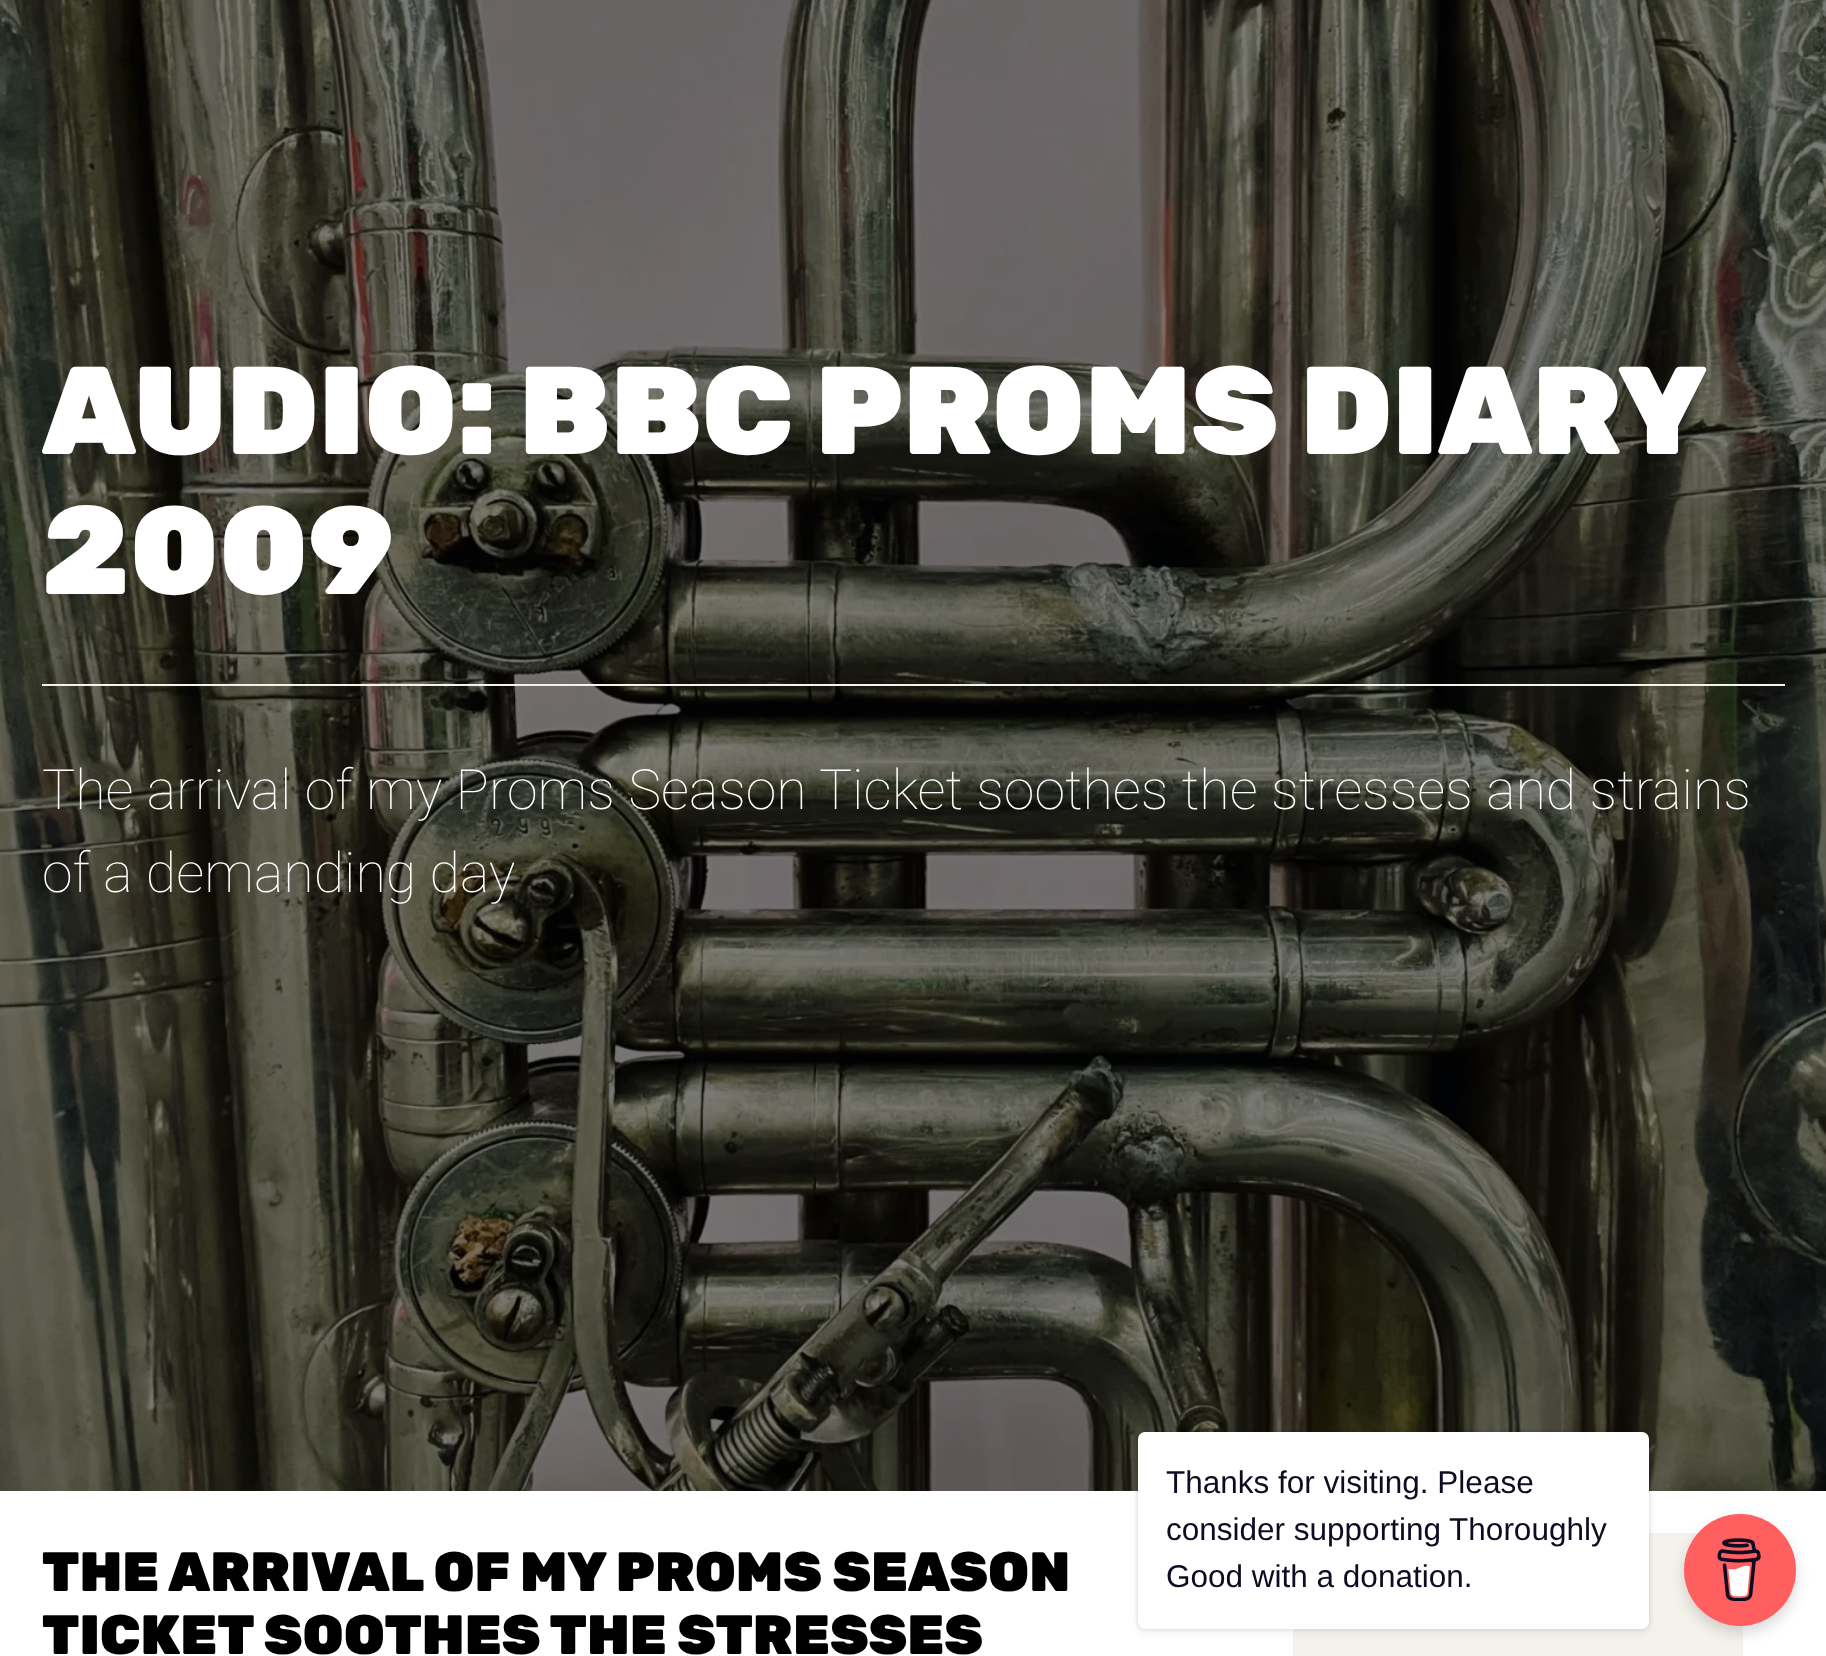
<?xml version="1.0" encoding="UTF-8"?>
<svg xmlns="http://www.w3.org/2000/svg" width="1826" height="1656">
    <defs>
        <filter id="blur1" x="-50%" y="-200%" width="200%" height="500%"><feGaussianBlur stdDeviation="2"/></filter>
        <filter id="blur2" x="-50%" y="-200%" width="200%" height="500%"><feGaussianBlur stdDeviation="4.5"/></filter>
        <filter id="blur3" x="-50%" y="-200%" width="200%" height="500%"><feGaussianBlur stdDeviation="7"/></filter>
    </defs>
    <rect width="100%" height="100%" fill="#FFFFFF"/>
    <image x="0" y="0" width="1826" height="1491" href="img_01.png"/>
    <text font-family="Rubik" font-size="124.5" font-weight="900" fill="#FFFFFF">
        <tspan x="42" y="454" word-spacing="-1">AUDIO: BBC PROMS DIARY</tspan>
        <tspan x="42" y="594">2009</tspan>
    </text>
    <rect x="42" y="684" width="1743" height="2" fill="#F5F2EC"/>
    <text font-family="Roboto" font-size="55.5" font-weight="100" fill="#FFFFFF">
        <tspan x="42" y="809">The arrival of my Proms Season Ticket soothes the stresses and strains</tspan>
        <tspan x="42" y="892">of a demanding day</tspan>
    </text>
    <text font-family="Rubik" font-size="55.5" font-weight="900" fill="#000000">
        <tspan x="42" y="1591">THE ARRIVAL OF MY PROMS SEASON</tspan>
        <tspan x="42" y="1654">TICKET SOOTHES THE STRESSES</tspan>
    </text>
    <rect x="1293" y="1533" width="450" height="123" fill="#F5F2EC"/>
    <rect x="1138" y="1432" width="511" height="197" rx="7" fill="#000000" fill-opacity="0.15" filter="url(#blur1)"/>
    <rect x="1138" y="1435" width="511" height="198" rx="7" fill="#000000" fill-opacity="0.05" filter="url(#blur2)"/>
    <rect x="1138" y="1432" width="511" height="197" rx="7" fill="#FFFFFF"/>
    <text font-family="Liberation Sans" font-size="31.5" fill="#0D0C22">
        <tspan x="1166" y="1493">Thanks for visiting. Please</tspan>
        <tspan x="1166" y="1540">consider supporting Thoroughly</tspan>
        <tspan x="1166" y="1587">Good with a donation.</tspan>
    </text>
    <rect x="1684" y="1521" width="112" height="112" rx="56" fill="#000000" fill-opacity="0.15" filter="url(#blur3)"/>
    <circle cx="1740" cy="1570" r="56" fill="#FF5F5F"/>
    <image x="1717" y="1538" width="44" height="63" href="img_02.png"/>
</svg>
